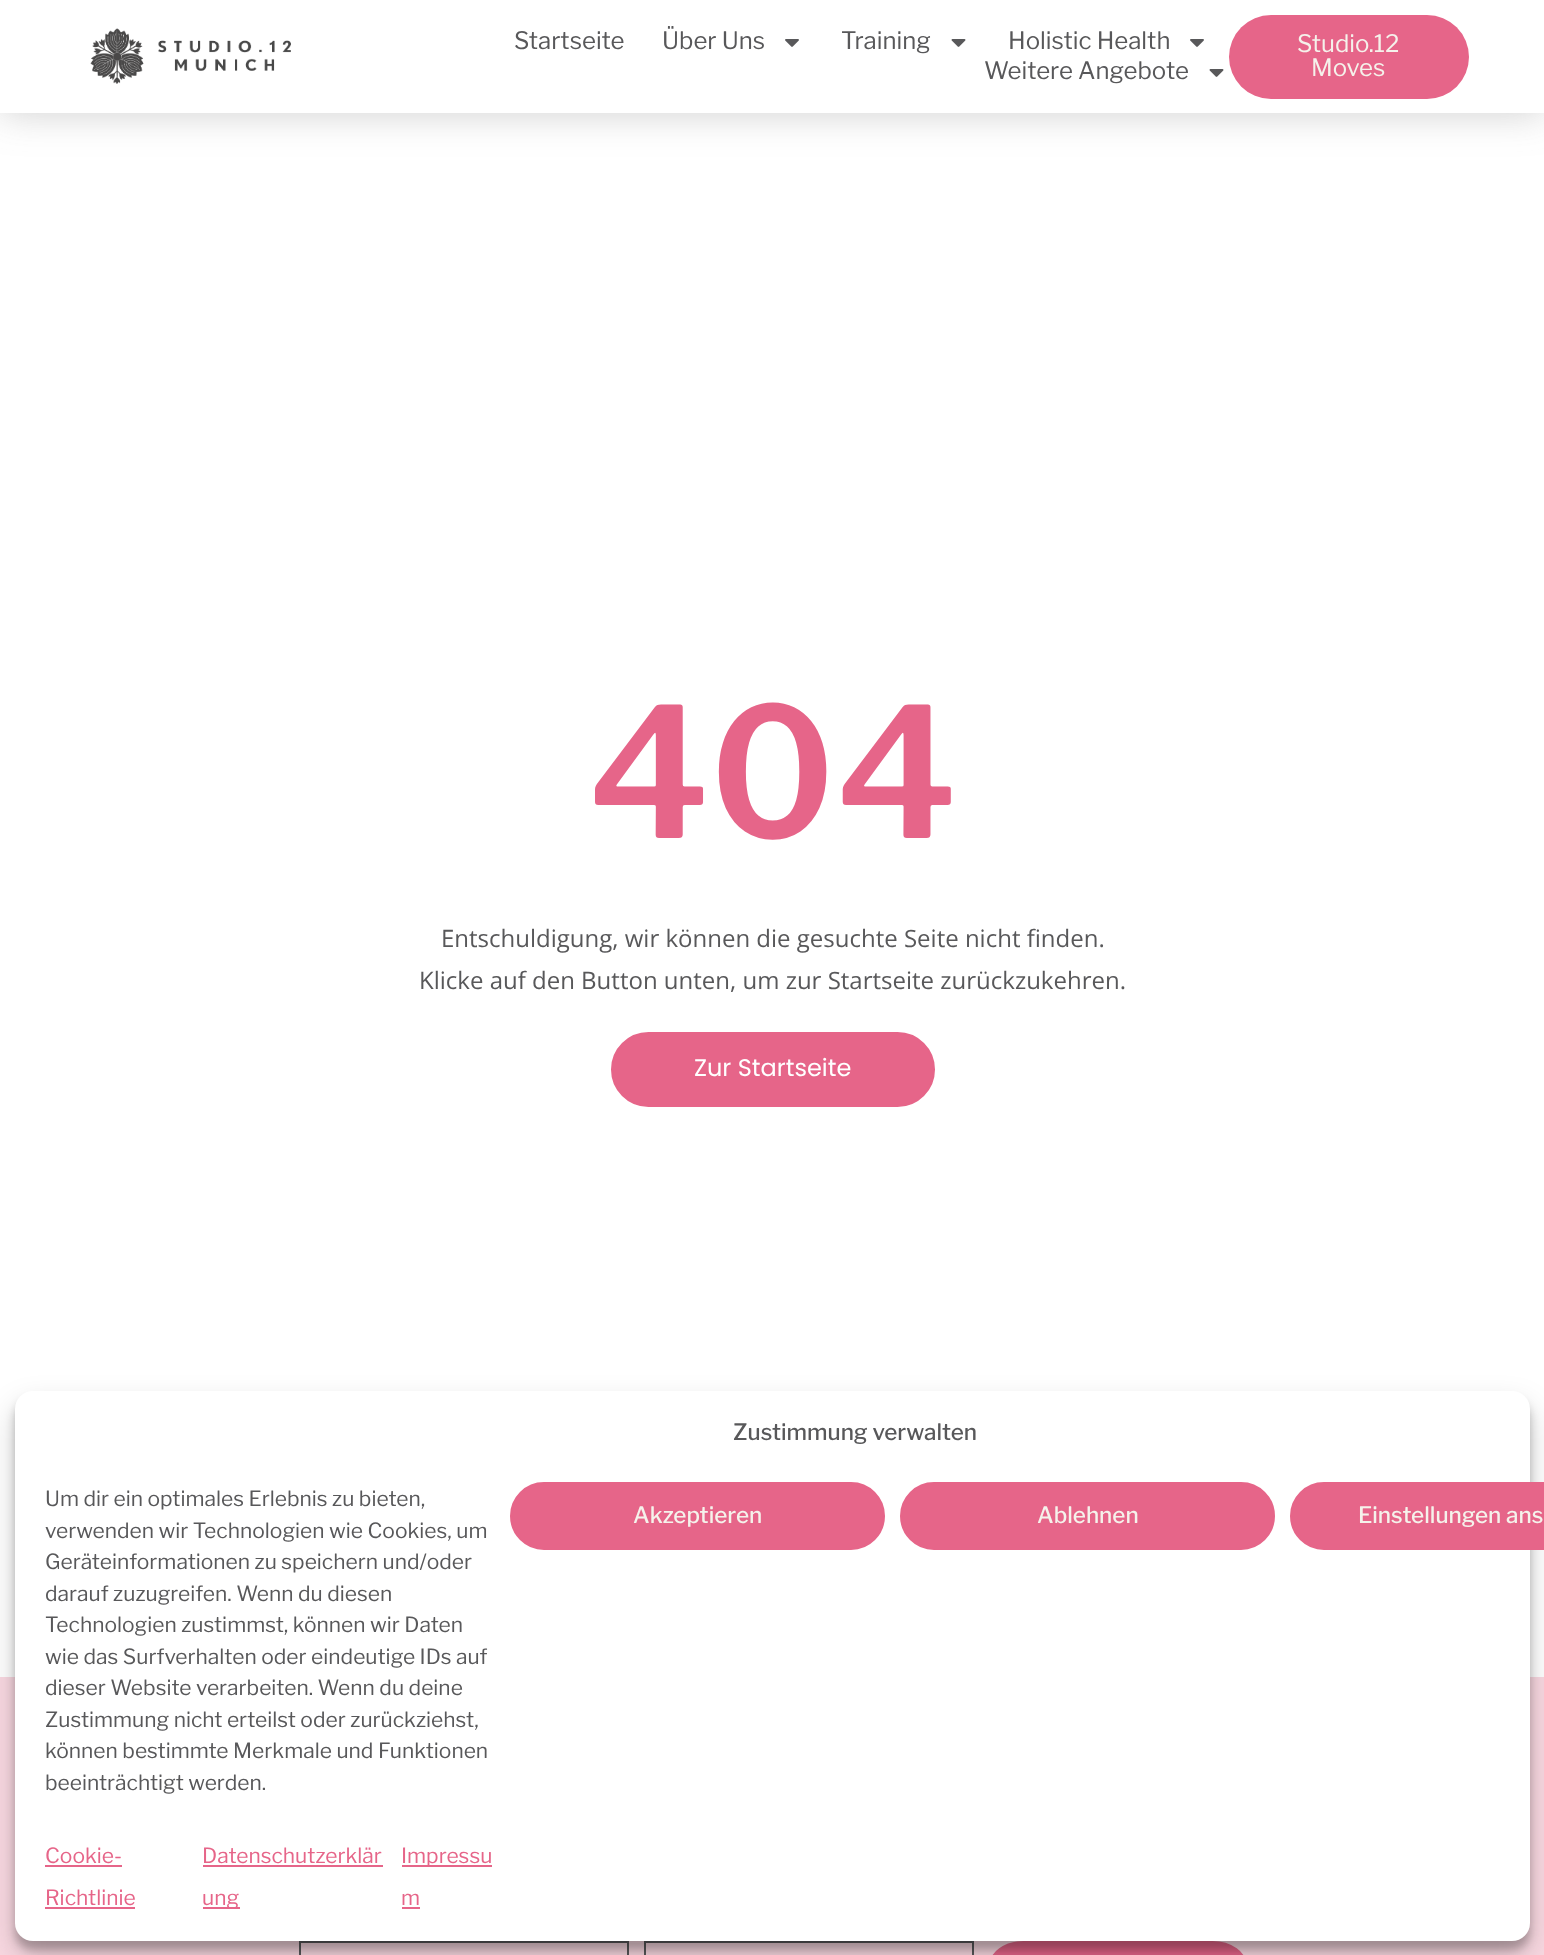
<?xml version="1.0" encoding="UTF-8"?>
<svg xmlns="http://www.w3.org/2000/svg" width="1544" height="1955">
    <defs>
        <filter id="blur1" x="-50%" y="-200%" width="200%" height="500%"><feGaussianBlur stdDeviation="19"/></filter>
        <filter id="blur2" x="-50%" y="-200%" width="200%" height="500%"><feGaussianBlur stdDeviation="4.5"/></filter>
        <filter id="blur3" x="-50%" y="-200%" width="200%" height="500%"><feGaussianBlur stdDeviation="15"/></filter>
    </defs>
    <rect width="100%" height="100%" fill="#FFFFFF"/>
    <rect x="0" y="0" width="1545" height="113" fill="#9A9A9A" fill-opacity="0.47" filter="url(#blur1)"/>
    <rect x="0" y="0" width="1544" height="113" fill="#FFFFFF"/>
    <image x="90" y="28" width="201" height="56" href="img_01.png"/>
    <text x="514" y="49" font-family="Libre Franklin" font-size="24" fill="#58585A">Startseite</text>
    <text x="662" y="49" font-family="Libre Franklin" font-size="24" fill="#58585A">Über Uns</text>
    <image x="785" y="39" width="14" height="8" href="img_02.png"/>
    <text x="841" y="49" font-family="Libre Franklin" font-size="24" fill="#58585A">Training</text>
    <image x="951" y="39" width="15" height="8" href="img_03.png"/>
    <text x="1008" y="49" font-family="Libre Franklin" font-size="24" fill="#58585A">Holistic Health</text>
    <image x="1190" y="39" width="14" height="8" href="img_02.png"/>
    <text x="984" y="79" font-family="Libre Franklin" font-size="24" fill="#58585A">Weitere Angebote</text>
    <image x="1209" y="69" width="15" height="8" href="img_03.png"/>
    <rect x="1229" y="15" width="240" height="84" rx="42" fill="#E66589"/>
    <text x="1297" y="52" font-family="Libre Franklin" font-size="24" fill="#F5F2EB">Studio.12</text>
    <text x="1311" y="76" font-family="Libre Franklin" font-size="24" fill="#F5F2EB">Moves</text>
    <text x="588" y="838" font-family="Libre Franklin" font-size="180" font-weight="600" fill="#E66589">404</text>
    <text x="441" y="947" font-family="Open Sans" font-size="24" fill="#58585A">Entschuldigung, wir können die gesuchte Seite nicht finden.</text>
    <text x="419" y="989" font-family="Open Sans" font-size="24" fill="#58585A">Klicke auf den Button unten, um zur Startseite zurückzukehren.</text>
    <rect x="612" y="1033" width="322" height="73" rx="36.5" fill="#E66589" stroke="#E66589" stroke-width="2"/>
    <text x="694" y="1076" font-family="Poppins" font-size="24" fill="#FFFFFF">Zur Startseite</text>
    <rect x="0" y="1677" width="1544" height="278" fill="#F9D8E1"/>
    <rect x="300" y="1942" width="328" height="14" fill="none" stroke="#58585A" stroke-width="2"/>
    <rect x="645" y="1942" width="328" height="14" fill="none" stroke="#58585A" stroke-width="2"/>
    <rect x="990" y="1942" width="256" height="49" rx="33.5" fill="#E66589" stroke="#E66589" stroke-width="2"/>
    <rect x="15" y="1400" width="1515" height="550" rx="18" fill="#000000" fill-opacity="0.23" filter="url(#blur2)"/>
    <rect x="15" y="1406" width="1515" height="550" rx="18" fill="#000000" fill-opacity="0.19" filter="url(#blur3)"/>
    <rect x="15" y="1391" width="1515" height="550" rx="18" fill="#FFFFFF"/>
    <text x="733" y="1440" font-family="Libre Franklin" font-size="22.5" font-weight="500" fill="#58585A">Zustimmung verwalten</text>
    <text font-family="Libre Franklin" font-size="21" fill="#58585A">
        <tspan x="45" y="1506">Um dir ein optimales Erlebnis zu bieten,</tspan>
        <tspan x="45" y="1538">verwenden wir Technologien wie Cookies, um</tspan>
        <tspan x="45" y="1569">Geräteinformationen zu speichern und/oder</tspan>
        <tspan x="45" y="1601">darauf zuzugreifen. Wenn du diesen</tspan>
        <tspan x="45" y="1632">Technologien zustimmst, können wir Daten</tspan>
        <tspan x="45" y="1664">wie das Surfverhalten oder eindeutige IDs auf</tspan>
        <tspan x="45" y="1695">dieser Website verarbeiten. Wenn du deine</tspan>
        <tspan x="45" y="1727">Zustimmung nicht erteilst oder zurückziehst,</tspan>
        <tspan x="45" y="1758">können bestimmte Merkmale und Funktionen</tspan>
        <tspan x="45" y="1790">beeinträchtigt werden.</tspan>
    </text>
    <rect x="511" y="1483" width="373" height="66" rx="33" fill="#E66589" stroke="#E66589" stroke-width="2"/>
    <text x="633" y="1523" font-family="Libre Franklin" font-size="22.5" font-weight="500" fill="#F5F2EB">Akzeptieren</text>
    <rect x="901" y="1483" width="373" height="66" rx="33" fill="#E66589" stroke="#E66589" stroke-width="2"/>
    <text x="1037" y="1523" font-family="Libre Franklin" font-size="22.5" font-weight="500" fill="#F5F2EB">Ablehnen</text>
    <rect x="1291" y="1483" width="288" height="66" rx="33" fill="#E66589" stroke="#E66589" stroke-width="2"/>
    <text x="1358" y="1523" font-family="Libre Franklin" font-size="22.5" font-weight="500" fill="#F5F2EB">Einstellungen ans</text>
    <text x="45" y="1863" font-family="Libre Franklin" font-size="21" fill="#E66589">Cookie-</text>
    <rect x="45" y="1865" width="77" height="2" fill="#E66589"/>
    <text x="45" y="1905" font-family="Libre Franklin" font-size="21" fill="#E66589">Richtlinie</text>
    <rect x="45" y="1907" width="90" height="2" fill="#E66589"/>
    <text x="202" y="1863" font-family="Libre Franklin" font-size="21" fill="#E66589">Datenschutzerklär</text>
    <rect x="203" y="1865" width="180" height="2" fill="#E66589"/>
    <rect x="203" y="1907" width="37" height="2" fill="#E66589"/>
    <text x="202" y="1905" font-family="Libre Franklin" font-size="21" fill="#E66589">ung</text>
    <rect x="402" y="1865" width="90" height="2" fill="#E66589"/>
    <text x="401" y="1863" font-family="Libre Franklin" font-size="21" fill="#E66589">Impressu</text>
    <text x="401" y="1905" font-family="Libre Franklin" font-size="21" fill="#E66589">m</text>
    <rect x="402" y="1907" width="18" height="2" fill="#E66589"/>
</svg>
